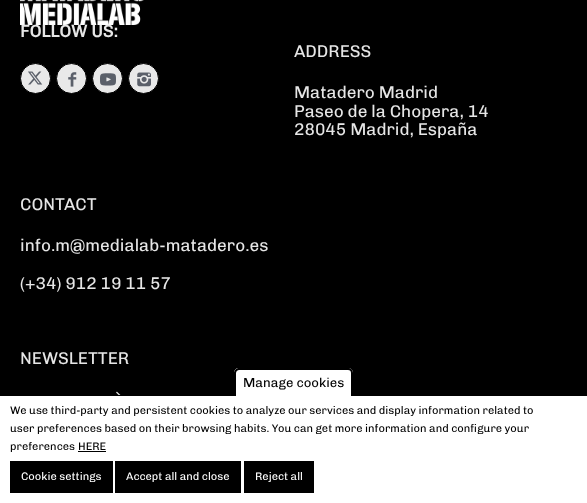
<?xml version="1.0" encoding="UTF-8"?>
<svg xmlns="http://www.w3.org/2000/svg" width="587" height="503">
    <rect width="100%" height="100%" fill="#000000"/>
    <image x="20" y="0" width="124" height="25" href="img_01.png"/>
    <text x="20" y="37" font-family="Chivo" font-size="17" font-weight="700" fill="#E6E6E6">FOLLOW US:</text>
    <circle cx="35.5" cy="78.5" r="15" fill="#E9E9E9" stroke="#000000"/>
    <image x="28" y="71" width="15" height="14" href="img_02.png"/>
    <circle cx="71.5" cy="78.5" r="15" fill="#E9E9E9" stroke="#000000"/>
    <image x="68" y="72" width="9" height="15" href="img_03.png"/>
    <circle cx="107.5" cy="78.5" r="15" fill="#E9E9E9" stroke="#000000"/>
    <image x="100" y="73" width="16" height="13" href="img_04.png"/>
    <circle cx="143.5" cy="78.5" r="15" fill="#E9E9E9" stroke="#000000"/>
    <image x="137" y="72" width="14" height="15" href="img_05.png"/>
    <text x="294" y="57" font-family="Chivo" font-size="17" font-weight="500" fill="#E6E6E6">ADDRESS</text>
    <text font-family="Chivo" font-size="17" font-weight="500" fill="#E6E6E6">
        <tspan x="294" y="98">Matadero Madrid</tspan>
        <tspan x="294" y="117">Paseo de la Chopera, 14</tspan>
        <tspan x="294" y="135">28045 Madrid, España</tspan>
    </text>
    <text x="20" y="210" font-family="Chivo" font-size="17" font-weight="500" fill="#E6E6E6">CONTACT</text>
    <text x="20" y="251" font-family="Chivo" font-size="17" font-weight="500" fill="#E6E6E6">info.m@medialab-matadero.es</text>
    <text x="20" y="289" font-family="Chivo" font-size="17" font-weight="500" fill="#E6E6E6">(+34) 912 19 11 57</text>
    <text x="20" y="364" font-family="Chivo" font-size="17" font-weight="500" fill="#E6E6E6">NEWSLETTER</text>
    <image x="116" y="391" width="5" height="4" href="img_06.png"/>
    <rect x="0" y="396" width="587" height="107" fill="#FFFFFF"/>
    <path d="M 239 368 H 348 C 351 368 353 370 353 373 V 396 H 234 V 373 C 234 370 236 368 239 368 Z" fill="#FFFFFF"/>
    <path d="M 239 368 H 348 C 351 368 353 370 353 373 V 396 H 234 V 373 C 234 370 237 368 239 368 Z M 239 370 H 348 C 350 370 351 371 351 373 V 396 H 236 V 373 C 236 371 238 370 239 370 Z" fill="#000000" fill-rule="evenodd"/>
    <text x="243" y="387" font-family="Chivo" font-size="13" font-weight="500" fill="#000000">Manage cookies</text>
    <text font-family="Chivo" font-size="11" font-weight="500" fill="#000000">
        <tspan x="10" y="414">We use third-party and persistent cookies to analyze our services and display information related to</tspan>
        <tspan x="10" y="432">user preferences based on their browsing habits. You can get more information and configure your</tspan>
        <tspan x="10" y="450">preferences</tspan>
    </text>
    <text x="78" y="450" font-family="Chivo" font-size="11" font-weight="500" fill="#000000">HERE</text>
    <rect x="78" y="451" width="28" height="1" fill="#000000"/>
    <rect x="10" y="461" width="103" height="32" fill="#000000"/>
    <text x="21" y="480" font-family="Chivo" font-size="11" font-weight="500" fill="#FFFFFF">Cookie settings</text>
    <rect x="115" y="461" width="126" height="32" fill="#000000"/>
    <text x="126" y="480" font-family="Chivo" font-size="11" font-weight="500" fill="#FFFFFF">Accept all and close</text>
    <rect x="244" y="461" width="70" height="32" fill="#000000"/>
    <text x="255" y="480" font-family="Chivo" font-size="11" font-weight="500" fill="#FFFFFF">Reject all</text>
</svg>
